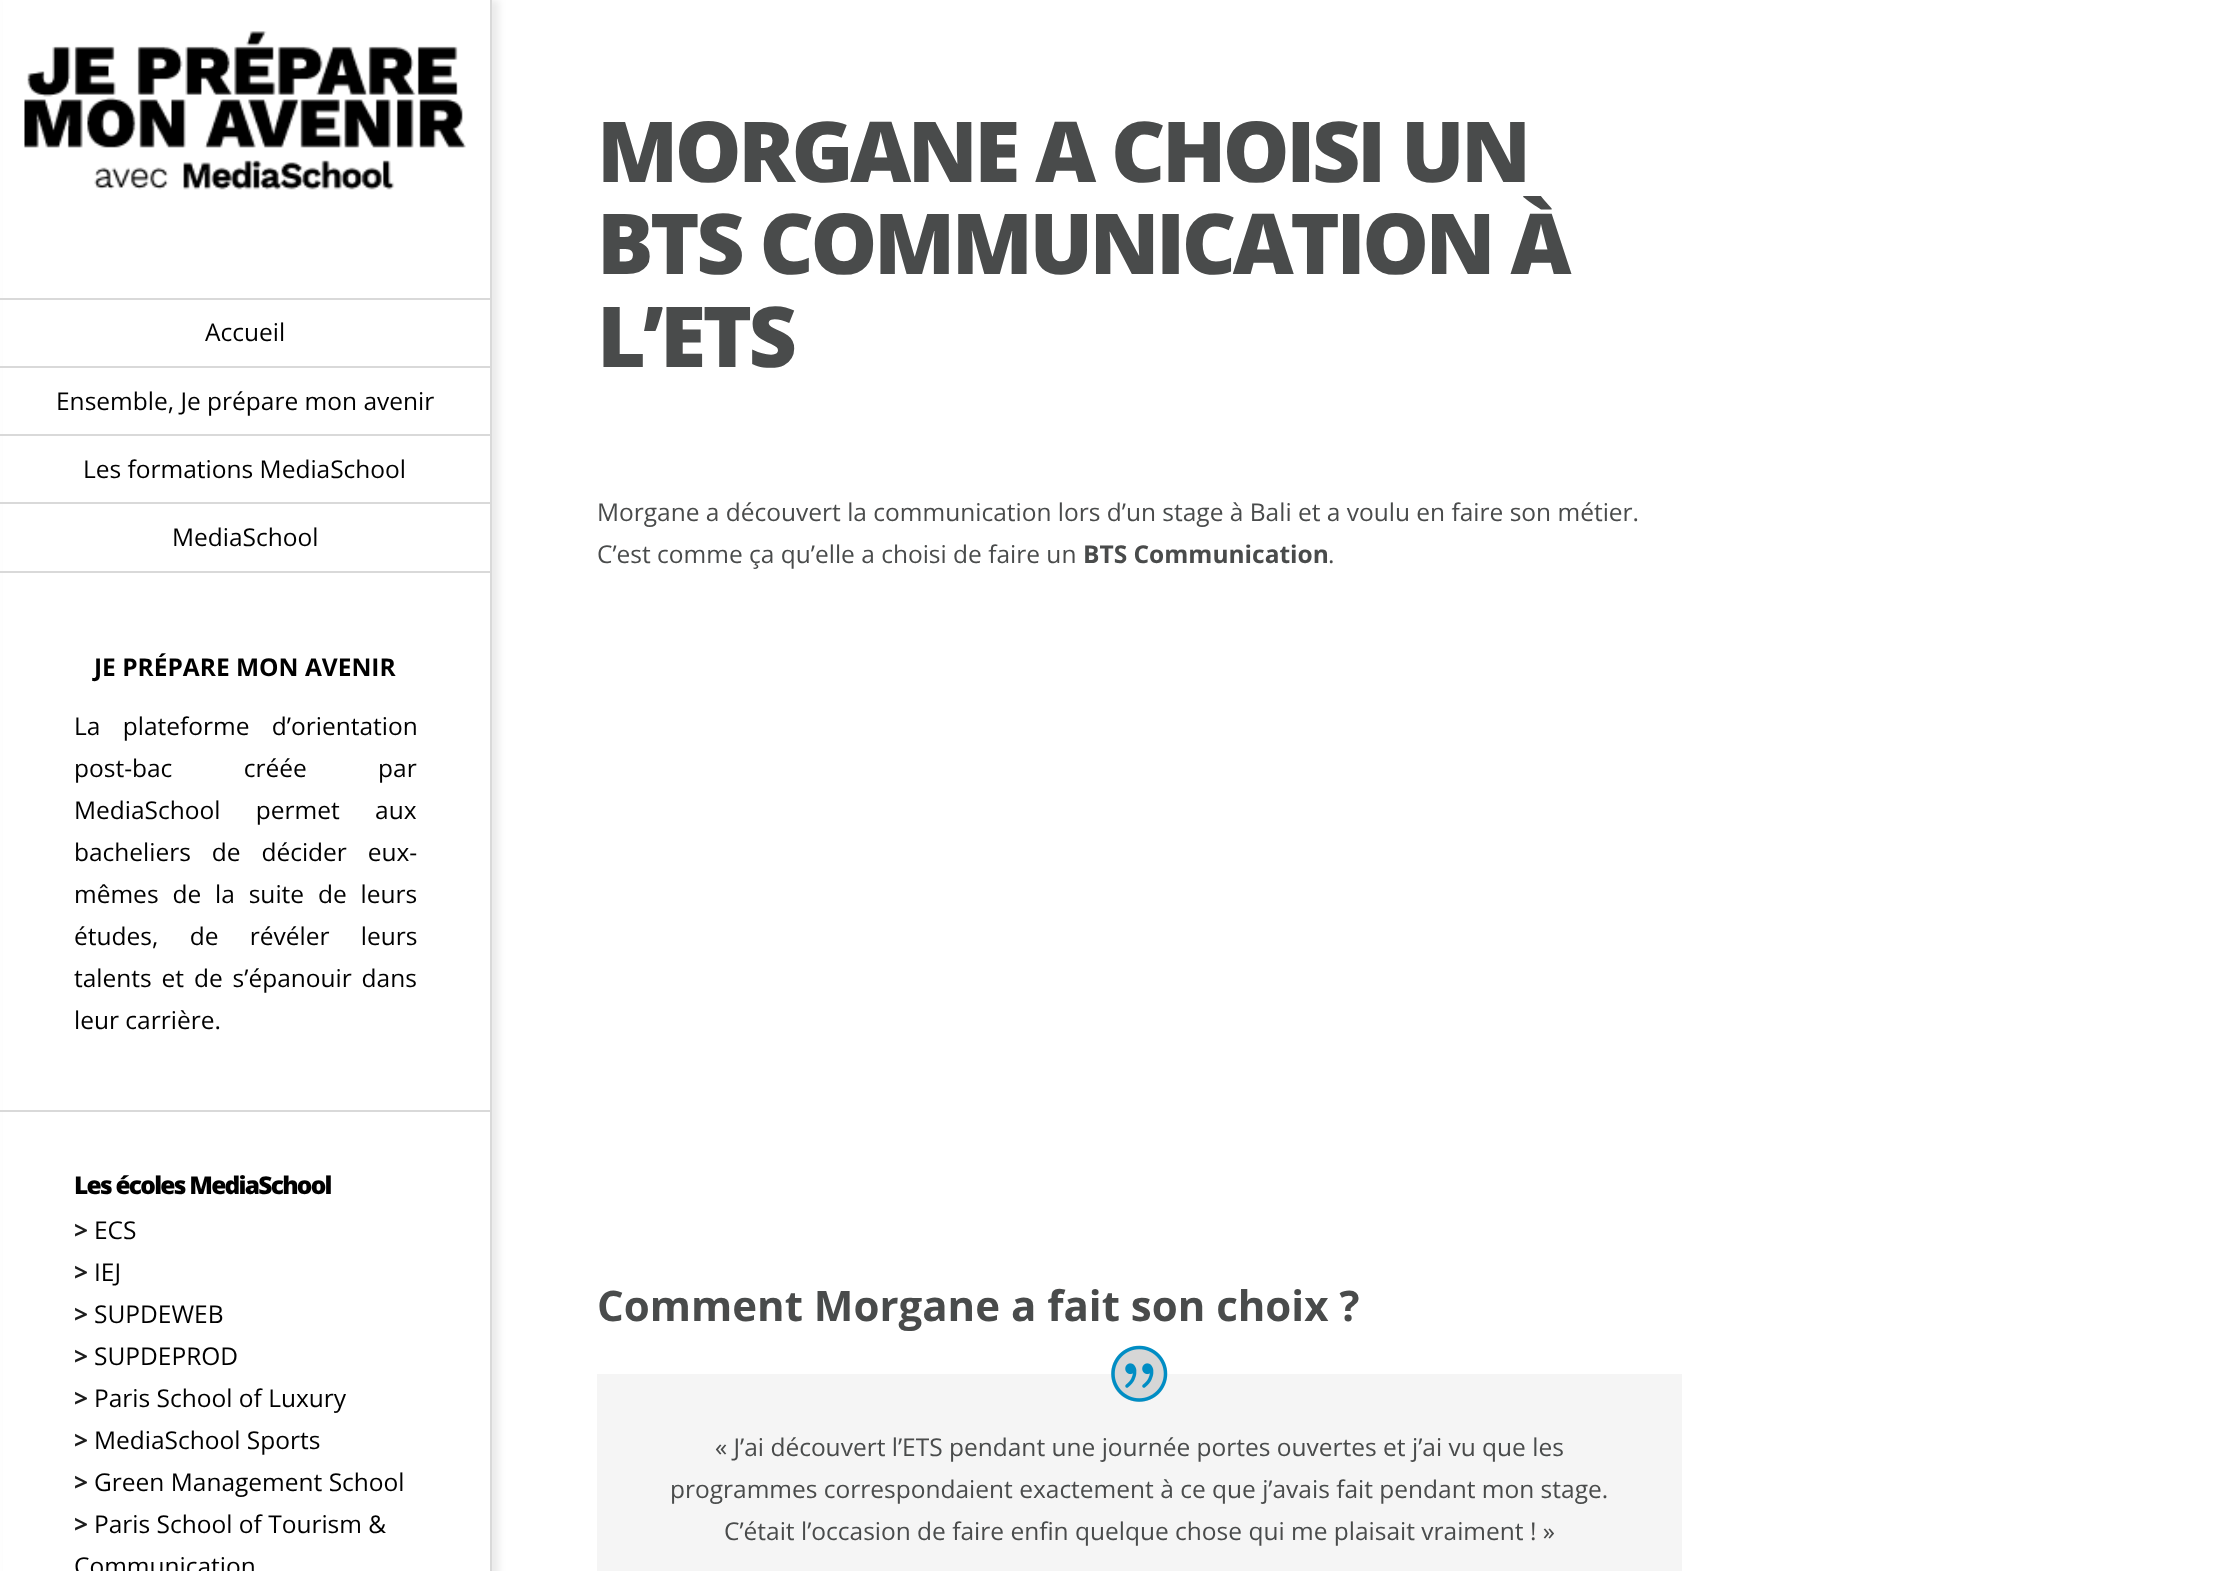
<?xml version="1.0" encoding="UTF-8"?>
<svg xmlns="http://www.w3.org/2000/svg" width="2235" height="1571">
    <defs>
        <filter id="blur1" x="-50%" y="-200%" width="200%" height="500%"><feGaussianBlur stdDeviation="3.5"/></filter>
    </defs>
    <rect width="100%" height="100%" fill="#FFFFFF"/>
    <rect x="7" y="0" width="492" height="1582" fill="#000000" fill-opacity="0.08" filter="url(#blur1)"/>
    <rect x="3" y="0" width="487" height="1571" fill="#FFFFFF"/>
    <rect x="490" y="0" width="2" height="1571" fill="#D9D9D9"/>
    <text font-family="Open Sans" font-size="84" font-weight="800" letter-spacing="-3.5" fill="#494B4B">
        <tspan x="597" y="182">MORGANE A CHOISI UN</tspan>
        <tspan x="597" y="274">BTS COMMUNICATION À</tspan>
        <tspan x="597" y="367">L’ETS</tspan>
    </text>
    <text font-family="Open Sans" font-size="24.5" fill="#494B4B">
        <tspan x="597" y="521">Morgane a découvert la communication lors d’un stage à Bali et a voulu en faire son métier.</tspan>
        <tspan x="597" y="563">C’est comme ça qu’elle a choisi de faire un</tspan>
    </text>
    <text x="1083" y="563" font-family="Open Sans" font-size="24.5" font-weight="700" fill="#494B4B">BTS Communication</text>
    <text x="1328" y="563" font-family="Open Sans" font-size="24.5" fill="#494B4B">.</text>
    <text x="597" y="1321" font-family="Open Sans" font-size="42" font-weight="700" fill="#494B4B">Comment Morgane a fait son choix ?</text>
    <rect x="597" y="1374" width="1085" height="197" fill="#F5F5F5"/>
    <circle cx="1139" cy="1374" r="28" fill="#D6D6D6"/>
    <image x="1111" y="1345" width="57" height="57" href="img_01.png"/>
    <text x="715" y="1456" font-family="Open Sans" font-size="24.5" fill="#494B4B">« J’ai découvert l’ETS pendant une journée portes ouvertes et j’ai vu que les</text>
    <text x="670" y="1498" font-family="Open Sans" font-size="24.5" fill="#494B4B">programmes correspondaient exactement à ce que j’avais fait pendant mon stage.</text>
    <text x="724" y="1540" font-family="Open Sans" font-size="24.5" fill="#494B4B">C’était l’occasion de faire enfin quelque chose qui me plaisait vraiment ! »</text>
    <image x="24" y="31" width="442" height="159" href="img_02.png"/>
    <rect x="0" y="298" width="490" height="2" fill="#D9D9D9"/>
    <rect x="0" y="366" width="490" height="2" fill="#D9D9D9"/>
    <text x="205" y="341" font-family="Open Sans" font-size="24.5" fill="#000000">Accueil</text>
    <rect x="0" y="434" width="490" height="2" fill="#D9D9D9"/>
    <text x="56" y="410" font-family="Open Sans" font-size="24.5" fill="#000000">Ensemble, Je prépare mon avenir</text>
    <rect x="0" y="502" width="490" height="2" fill="#D9D9D9"/>
    <text x="83" y="478" font-family="Open Sans" font-size="24.5" fill="#000000">Les formations MediaSchool</text>
    <rect x="0" y="571" width="490" height="2" fill="#D9D9D9"/>
    <text x="172" y="546" font-family="Open Sans" font-size="24.5" fill="#000000">MediaSchool</text>
    <rect x="0" y="1110" width="490" height="2" fill="#D9D9D9"/>
    <text x="94" y="676" font-family="Open Sans" font-size="24.5" font-weight="700" fill="#000000">JE PRÉPARE MON AVENIR</text>
    <text font-family="Open Sans" font-size="24.5" fill="#000000">
        <tspan x="74" y="735" word-spacing="16">La plateforme d’orientation</tspan>
        <tspan x="74" y="777" word-spacing="65">post-bac créée par</tspan>
        <tspan x="74" y="819" word-spacing="29">MediaSchool permet aux</tspan>
        <tspan x="74" y="861" word-spacing="14.5">bacheliers de décider eux-</tspan>
        <tspan x="74" y="903" word-spacing="7.5">mêmes de la suite de leurs</tspan>
        <tspan x="74" y="945" word-spacing="25">études, de révéler leurs</tspan>
        <tspan x="74" y="987" word-spacing="3.5">talents et de s’épanouir dans</tspan>
        <tspan x="74" y="1029">leur carrière.</tspan>
    </text>
    <text x="74" y="1194" font-family="Open Sans" font-size="24.5" font-weight="800" letter-spacing="-1.75" fill="#000000">Les écoles MediaSchool</text>
    <text x="74" y="1239" font-family="Open Sans" font-size="24.5" font-weight="700" fill="#1C1C1C">&gt;</text>
    <text x="94" y="1239" font-family="Open Sans" font-size="24.5" fill="#000000">ECS</text>
    <text x="74" y="1281" font-family="Open Sans" font-size="24.5" font-weight="700" fill="#1C1C1C">&gt;</text>
    <text x="94" y="1281" font-family="Open Sans" font-size="24.5" fill="#000000">IEJ</text>
    <text x="74" y="1323" font-family="Open Sans" font-size="24.5" font-weight="700" fill="#1C1C1C">&gt;</text>
    <text x="94" y="1323" font-family="Open Sans" font-size="24.5" fill="#000000">SUPDEWEB</text>
    <text x="74" y="1365" font-family="Open Sans" font-size="24.5" font-weight="700" fill="#1C1C1C">&gt;</text>
    <text x="94" y="1365" font-family="Open Sans" font-size="24.5" fill="#000000">SUPDEPROD</text>
    <text x="74" y="1407" font-family="Open Sans" font-size="24.5" font-weight="700" fill="#1C1C1C">&gt;</text>
    <text x="94" y="1407" font-family="Open Sans" font-size="24.5" fill="#000000">Paris School of Luxury</text>
    <text x="74" y="1449" font-family="Open Sans" font-size="24.5" font-weight="700" fill="#1C1C1C">&gt;</text>
    <text x="94" y="1449" font-family="Open Sans" font-size="24.5" fill="#000000">MediaSchool Sports</text>
    <text x="74" y="1491" font-family="Open Sans" font-size="24.5" font-weight="700" fill="#1C1C1C">&gt;</text>
    <text x="94" y="1491" font-family="Open Sans" font-size="24.5" fill="#000000">Green Management School</text>
    <text x="74" y="1533" font-family="Open Sans" font-size="24.5" font-weight="700" fill="#1C1C1C">&gt;</text>
    <text x="94" y="1533" font-family="Open Sans" font-size="24.5" fill="#000000">Paris School of Tourism &amp;</text>
    <text x="74" y="1575" font-family="Open Sans" font-size="24.5" fill="#000000">Communication</text>
</svg>
